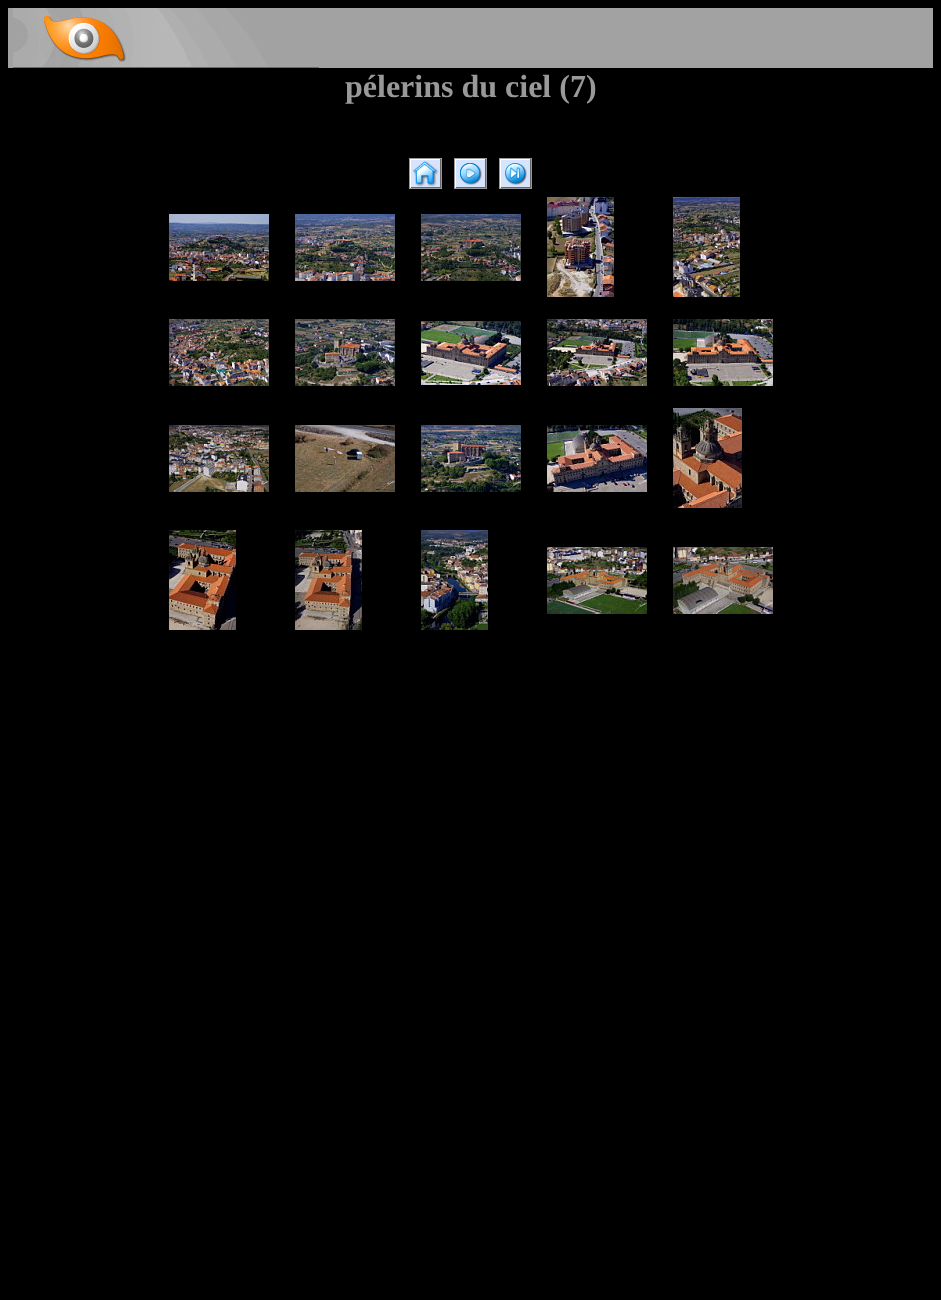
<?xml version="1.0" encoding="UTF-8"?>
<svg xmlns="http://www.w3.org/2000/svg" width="941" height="1300">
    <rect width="100%" height="100%" fill="#000000"/>
    <rect x="8" y="8" width="925" height="60" fill="#A2A2A2"/>
    <image x="13" y="8" width="306" height="60" href="img_01.png"/>
    <text x="345" y="97" font-family="Liberation Serif" font-size="32" font-weight="700" fill="#999999">pélerins du ciel (7)</text>
    <image x="409" y="158" width="33" height="31" href="img_02.png"/>
    <image x="454" y="158" width="33" height="31" href="img_03.png"/>
    <image x="499" y="158" width="33" height="31" href="img_04.png"/>
    <image x="169" y="214" width="100" height="67" href="img_05.png"/>
    <image x="295" y="214" width="100" height="67" href="img_06.png"/>
    <image x="421" y="214" width="100" height="67" href="img_07.png"/>
    <image x="547" y="197" width="67" height="100" href="img_08.png"/>
    <image x="673" y="197" width="67" height="100" href="img_09.png"/>
    <image x="169" y="319" width="100" height="67" href="img_10.png"/>
    <image x="295" y="319" width="100" height="67" href="img_11.png"/>
    <image x="421" y="321" width="100" height="64" href="img_12.png"/>
    <image x="547" y="319" width="100" height="67" href="img_13.png"/>
    <image x="673" y="319" width="100" height="67" href="img_14.png"/>
    <image x="169" y="425" width="100" height="67" href="img_15.png"/>
    <image x="295" y="425" width="100" height="67" href="img_16.png"/>
    <image x="421" y="425" width="100" height="67" href="img_17.png"/>
    <image x="547" y="425" width="100" height="67" href="img_18.png"/>
    <image x="673" y="408" width="69" height="100" href="img_19.png"/>
    <image x="169" y="530" width="67" height="100" href="img_20.png"/>
    <image x="295" y="530" width="67" height="100" href="img_21.png"/>
    <image x="421" y="530" width="67" height="100" href="img_22.png"/>
    <image x="547" y="547" width="100" height="67" href="img_23.png"/>
    <image x="673" y="547" width="100" height="67" href="img_24.png"/>
</svg>
